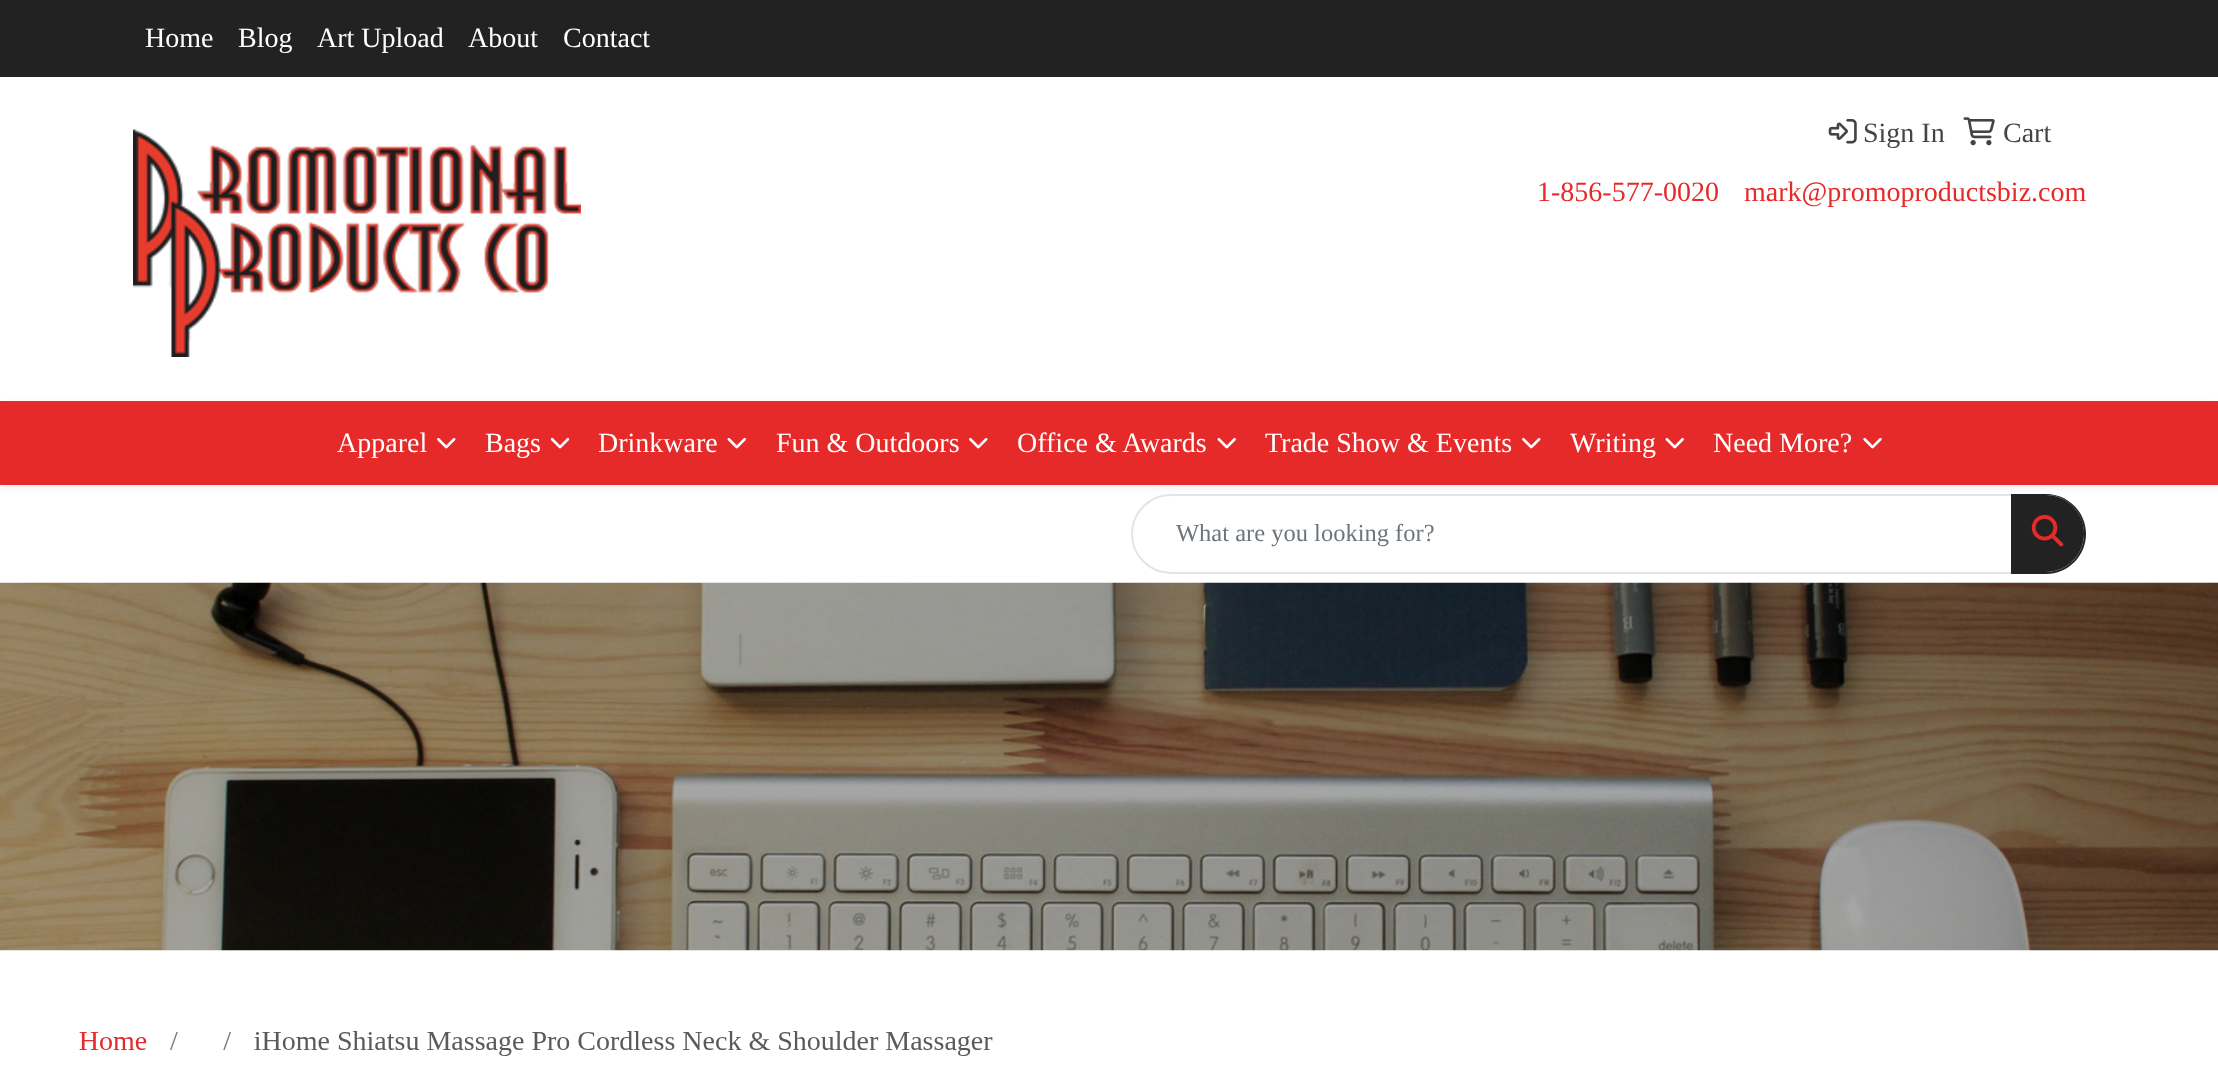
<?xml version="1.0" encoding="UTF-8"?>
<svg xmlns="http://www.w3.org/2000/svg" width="2218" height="1069">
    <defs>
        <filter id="blur1" x="-50%" y="-200%" width="200%" height="500%"><feGaussianBlur stdDeviation="3.5"/></filter>
    </defs>
    <rect width="100%" height="100%" fill="#FFFFFF"/>
    <rect x="0" y="0" width="2218" height="77" fill="#222222"/>
    <text x="145" y="47" font-family="Liberation Serif" font-size="28" fill="#FFFFFF">Home</text>
    <text x="238" y="47" font-family="Liberation Serif" font-size="28" fill="#FFFFFF">Blog</text>
    <text x="317" y="47" font-family="Liberation Serif" font-size="28" fill="#FFFFFF">Art Upload</text>
    <text x="468" y="47" font-family="Liberation Serif" font-size="28" fill="#FFFFFF">About</text>
    <text x="563" y="47" font-family="Liberation Serif" font-size="28" fill="#FFFFFF">Contact</text>
    <image x="133" y="129" width="448" height="228" href="img_01.png"/>
    <image x="1828" y="119" width="29" height="25" href="img_02.png"/>
    <text x="1863" y="142" font-family="Liberation Serif" font-size="28" fill="#444444">Sign In</text>
    <image x="1963" y="117" width="32" height="29" href="img_03.png"/>
    <text x="2003" y="142" font-family="Liberation Serif" font-size="28" fill="#444444">Cart</text>
    <text x="1537" y="201" font-family="Liberation Serif" font-size="28" fill="#E62929">1-856-577-0020</text>
    <text x="1744" y="201" font-family="Liberation Serif" font-size="28" fill="#E62929">mark@promoproductsbiz.com</text>
    <rect x="0" y="404" width="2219" height="84" fill="#000000" fill-opacity="0.07" filter="url(#blur1)"/>
    <rect x="0" y="401" width="2218" height="84" fill="#E62929"/>
    <text x="337" y="452" font-family="Liberation Serif" font-size="28" fill="#FFFFFF">Apparel</text>
    <image x="437" y="437" width="19" height="12" href="img_04.png"/>
    <text x="485" y="452" font-family="Liberation Serif" font-size="28" fill="#FFFFFF">Bags</text>
    <image x="550" y="438" width="20" height="11" href="img_05.png"/>
    <text x="598" y="452" font-family="Liberation Serif" font-size="28" fill="#FFFFFF">Drinkware</text>
    <image x="727" y="437" width="19" height="12" href="img_06.png"/>
    <text x="776" y="452" font-family="Liberation Serif" font-size="28" fill="#FFFFFF">Fun &amp; Outdoors</text>
    <image x="969" y="437" width="19" height="12" href="img_04.png"/>
    <text x="1017" y="452" font-family="Liberation Serif" font-size="28" fill="#FFFFFF">Office &amp; Awards</text>
    <image x="1217" y="437" width="19" height="12" href="img_06.png"/>
    <text x="1265" y="452" font-family="Liberation Serif" font-size="28" fill="#FFFFFF">Trade Show &amp; Events</text>
    <image x="1522" y="437" width="19" height="12" href="img_04.png"/>
    <text x="1570" y="452" font-family="Liberation Serif" font-size="28" fill="#FFFFFF">Writing</text>
    <image x="1665" y="437" width="19" height="12" href="img_06.png"/>
    <text x="1713" y="452" font-family="Liberation Serif" font-size="28" fill="#FFFFFF">Need More?</text>
    <image x="1863" y="437" width="19" height="12" href="img_07.png"/>
    <path d="M 1171 495 H 2012 V 573 H 1171 C 1149.5 573 1132 555.5 1132 534 C 1132 512.5 1149.5 495 1171 495 Z" fill="none" stroke="#E4E4E4" stroke-width="2"/>
    <text x="1176" y="541" font-family="Liberation Serif" font-size="24.5" fill="#6C757D">What are you looking for?</text>
    <path d="M 2011 495 H 2045.5 C 2067 495 2084 512 2084 533.5 C 2084 555 2067 572 2045.5 572 H 2011 Z" fill="#222222"/>
    <path d="M 2011 494 H 2046 C 2068 494 2086 512 2086 534 C 2086 556 2068 574 2046 574 H 2011 Z M 2011 495 H 2046 C 2067 495 2084 512 2084 534 C 2084 555 2067 572 2046 572 H 2011 Z" fill="#222222" fill-rule="evenodd"/>
    <image x="2031" y="514" width="33" height="33" href="img_08.png"/>
    <image x="0" y="582" width="2218" height="369" href="img_09.png"/>
    <image x="79" y="1031" width="914" height="25" href="img_10.png"/>
</svg>
